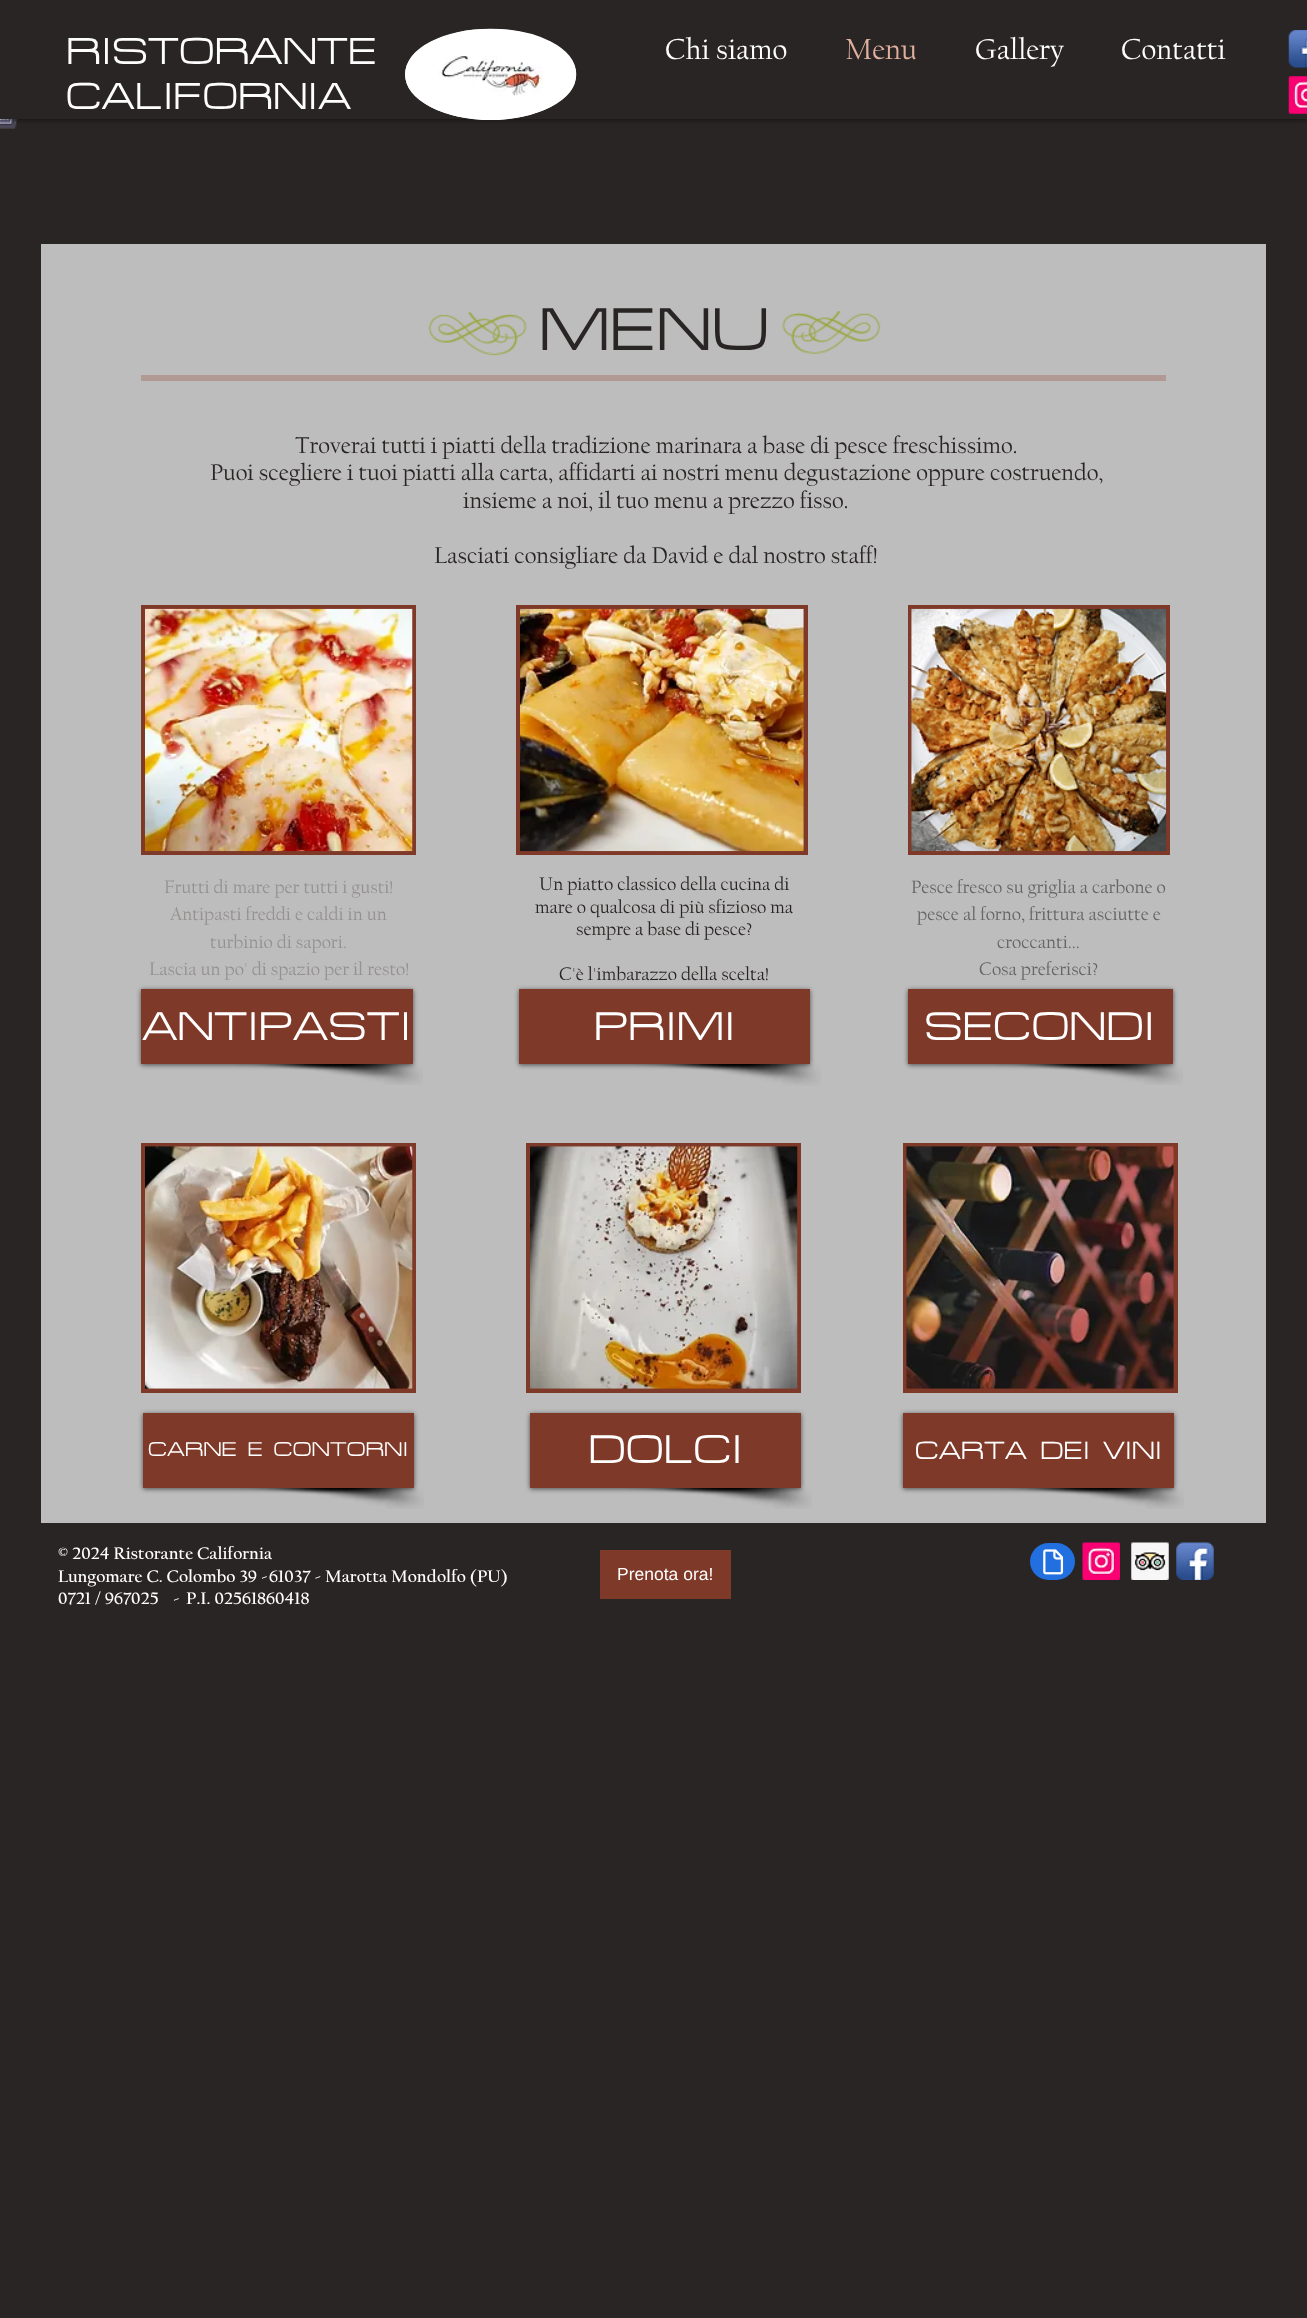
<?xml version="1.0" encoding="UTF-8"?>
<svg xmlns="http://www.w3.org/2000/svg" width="1307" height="2318">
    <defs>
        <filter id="blur1" x="-50%" y="-200%" width="200%" height="500%"><feGaussianBlur stdDeviation="3"/></filter>
        <filter id="blur2" x="-50%" y="-200%" width="200%" height="500%"><feGaussianBlur stdDeviation="2.5"/></filter>
    </defs>
    <rect width="100%" height="100%" fill="#292524"/>
    <image x="0" y="119" width="18" height="10" href="img_04.png"/>
    <rect x="0" y="0" width="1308" height="119" fill="#000000" fill-opacity="0.7" filter="url(#blur1)"/>
    <rect x="0" y="0" width="1307" height="119" fill="#292524"/>
    <text font-family="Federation" font-size="37.5" font-weight="500" fill="#FEFEFE">
        <tspan x="66" y="64">RISTORANTE</tspan>
        <tspan x="66" y="109">CALIFORNIA</tspan>
    </text>
    <ellipse cx="490.5" cy="74.5" rx="85.5" ry="45.5" fill="#FFFFFF"/>
    <path d="M 490.5 32.5 C 536 32.5 572.5 51 572.5 74.5 C 572.5 97.5 536 116 490.5 116 C 445.5 116 409 97.5 409 74.5 C 409 51 445.5 32.5 490.5 32.5 Z" fill="none" stroke="#FFFFFF" stroke-width="7.5"/>
    <image x="438" y="56" width="105" height="40" href="img_01.png"/>
    <text x="665" y="59" font-family="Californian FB" font-size="30" fill="#FEFEFE">Chi siamo</text>
    <text x="845" y="59" font-family="Californian FB" font-size="30" fill="#DFB09F">Menu</text>
    <text x="975" y="59" font-family="Californian FB" font-size="30" fill="#FEFEFE">Gallery</text>
    <text x="1121" y="59" font-family="Californian FB" font-size="30" fill="#FEFEFE">Contatti</text>
    <image x="1288" y="30" width="19" height="38" href="img_02.png"/>
    <image x="1288" y="76" width="19" height="38" href="img_03.png"/>
    <rect x="41" y="244" width="1225" height="1279" fill="#BEBDBD"/>
    <image x="428" y="312" width="99" height="44" href="img_05.png"/>
    <text x="539" y="350" font-family="Federation" font-size="60" font-weight="500" fill="#292524">MENU</text>
    <image x="782" y="311" width="99" height="43" href="img_06.png"/>
    <rect x="141" y="375" width="1025" height="6" fill="#B29A94"/>
    <text x="295" y="453" font-family="Californian FB" font-size="23.75" fill="#292524">Troverai tutti i piatti della tradizione marinara a base di pesce freschissimo.</text>
    <text x="210" y="480" font-family="Californian FB" font-size="23.75" fill="#292524">Puoi scegliere i tuoi piatti alla carta, affidarti ai nostri menu degustazione oppure costruendo,</text>
    <text x="463" y="508" font-family="Californian FB" font-size="23.75" fill="#292524">insieme a noi, il tuo menu a prezzo fisso.</text>
    <text x="434" y="563" font-family="Californian FB" font-size="23.75" fill="#292524">Lasciati consigliare da David e dal nostro staff!</text>
    <rect x="141" y="605" width="275" height="250" fill="#7F3928"/>
    <image x="145" y="608" width="268" height="244" href="img_07.png"/>
    <rect x="516" y="605" width="292" height="250" fill="#7F3928"/>
    <image x="520" y="608" width="284" height="244" href="img_08.png"/>
    <rect x="908" y="605" width="262" height="250" fill="#7F3928"/>
    <image x="911" y="608" width="256" height="244" href="img_09.png"/>
    <text x="164" y="893" font-family="Californian FB" font-size="18.75" fill="#949291">Frutti di mare per tutti i gusti!</text>
    <text x="170" y="920" font-family="Californian FB" font-size="18.75" fill="#949291">Antipasti freddi e caldi in un</text>
    <text x="210" y="948" font-family="Californian FB" font-size="18.75" fill="#949291">turbinio di sapori.</text>
    <text x="149" y="975" font-family="Californian FB" font-size="18.75" fill="#949291">Lascia un po' di spazio per il resto!</text>
    <text x="539" y="890" font-family="Californian FB" font-size="18.75" fill="#292524">Un piatto classico della cucina di</text>
    <text x="535" y="913" font-family="Californian FB" font-size="18.75" fill="#292524">mare o qualcosa di più sfizioso ma</text>
    <text x="576" y="935" font-family="Californian FB" font-size="18.75" fill="#292524">sempre a base di pesce?</text>
    <text x="559" y="980" font-family="Californian FB" font-size="18.75" fill="#292524">C'è l'imbarazzo della scelta!</text>
    <text x="911" y="893" font-family="Californian FB" font-size="18.75" fill="#656565">Pesce fresco su griglia a carbone o</text>
    <text x="917" y="920" font-family="Californian FB" font-size="18.75" fill="#656565">pesce al forno, frittura asciutte e</text>
    <text x="997" y="948" font-family="Californian FB" font-size="18.75" fill="#656565">croccanti...</text>
    <text x="979" y="975" font-family="Californian FB" font-size="18.75" fill="#656565">Cosa preferisci?</text>
    <image x="237" y="1064" width="186" height="21" href="img_10.png"/>
    <rect x="141" y="990" width="272" height="75" fill="#000000" fill-opacity="0.6" filter="url(#blur2)"/>
    <rect x="141" y="989" width="272" height="75" fill="#7F3928"/>
    <text x="142" y="1040" font-family="Federation" font-size="40" font-weight="500" fill="#FEFEFE">ANTIPASTI</text>
    <image x="635" y="1064" width="186" height="22" href="img_11.png"/>
    <rect x="519" y="990" width="291" height="75" fill="#000000" fill-opacity="0.6" filter="url(#blur2)"/>
    <rect x="519" y="989" width="291" height="75" fill="#7F3928"/>
    <text x="594" y="1040" font-family="Federation" font-size="40" font-weight="500" fill="#FEFEFE">PRIMI</text>
    <image x="997" y="1064" width="186" height="21" href="img_12.png"/>
    <rect x="908" y="990" width="265" height="75" fill="#000000" fill-opacity="0.6" filter="url(#blur2)"/>
    <rect x="908" y="989" width="265" height="75" fill="#7F3928"/>
    <text x="924" y="1040" font-family="Federation" font-size="40" font-weight="500" fill="#FEFEFE">SECONDI</text>
    <rect x="141" y="1143" width="275" height="250" fill="#7F3928"/>
    <image x="145" y="1146" width="268" height="243" href="img_13.png"/>
    <rect x="526" y="1143" width="275" height="250" fill="#7F3928"/>
    <image x="530" y="1146" width="268" height="243" href="img_14.png"/>
    <rect x="903" y="1143" width="275" height="250" fill="#7F3928"/>
    <image x="906" y="1146" width="268" height="243" href="img_15.png"/>
    <image x="239" y="1488" width="185" height="21" href="img_16.png"/>
    <rect x="143" y="1414" width="271" height="75" fill="#000000" fill-opacity="0.6" filter="url(#blur2)"/>
    <rect x="143" y="1413" width="271" height="75" fill="#7F3928"/>
    <text x="148" y="1456" font-family="Federation" font-size="20" font-weight="500" fill="#FEFEFE">CARNE E CONTORNI</text>
    <image x="626" y="1488" width="186" height="21" href="img_17.png"/>
    <rect x="530" y="1414" width="271" height="75" fill="#000000" fill-opacity="0.6" filter="url(#blur2)"/>
    <rect x="530" y="1413" width="271" height="75" fill="#7F3928"/>
    <text x="588" y="1463" font-family="Federation" font-size="40" font-weight="500" fill="#FEFEFE">DOLCI</text>
    <image x="999" y="1488" width="185" height="21" href="img_18.png"/>
    <rect x="903" y="1414" width="271" height="75" fill="#000000" fill-opacity="0.6" filter="url(#blur2)"/>
    <rect x="903" y="1413" width="271" height="75" fill="#7F3928"/>
    <text x="915" y="1459" font-family="Federation" font-size="25" font-weight="500" fill="#FEFEFE">CARTA DEI VINI</text>
    <text font-family="Californian FB" font-size="17.5" font-weight="700" fill="#FEFEFE">
        <tspan x="58" y="1559">© 2024 Ristorante California</tspan>
        <tspan x="58" y="1582">Lungomare C. Colombo 39 -</tspan>
    </text>
    <text x="269" y="1582" font-family="Californian FB" font-size="17.5" font-weight="700" fill="#FEFEFE">61037 - Marotta Mondolfo (PU)</text>
    <text x="58" y="1604" font-family="Californian FB" font-size="17.5" font-weight="700" fill="#FEFEFE">0721 / 967025</text>
    <text x="173" y="1604" font-family="Californian FB" font-size="17.5" font-weight="700" fill="#FEFEFE">-</text>
    <text x="186" y="1604" font-family="Californian FB" font-size="17.5" font-weight="700" fill="#FEFEFE">P.I. 02561860418</text>
    <rect x="600" y="1550" width="131" height="49" fill="#7F3928"/>
    <text x="617" y="1580" font-family="Liberation Sans" font-size="17.5" fill="#FEFEFE">Prenota ora!</text>
    <rect x="1030" y="1543" width="45" height="37" rx="18.5" fill="#2270DF"/>
    <image x="1043" y="1549" width="21" height="26" href="img_19.png"/>
    <image x="1082" y="1542" width="38" height="38" href="img_20.png"/>
    <image x="1131" y="1542" width="38" height="38" href="img_21.png"/>
    <image x="1176" y="1542" width="38" height="38" href="img_22.png"/>
</svg>
